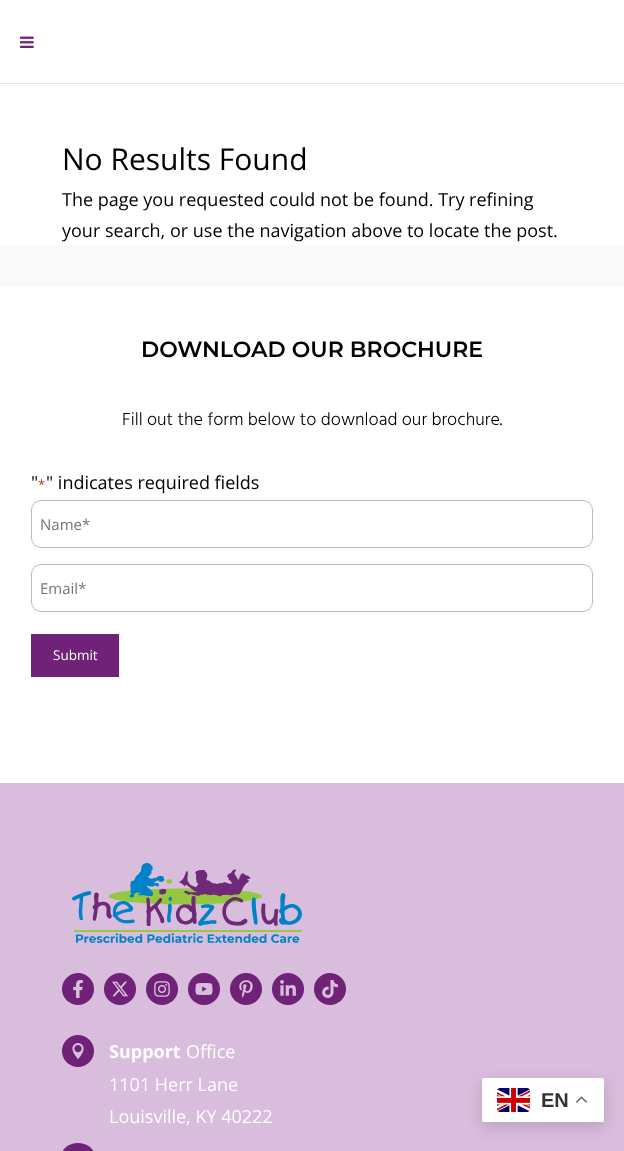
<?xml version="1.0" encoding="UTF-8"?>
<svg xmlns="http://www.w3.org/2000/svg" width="624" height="1151">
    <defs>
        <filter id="blur1" x="-50%" y="-200%" width="200%" height="500%"><feGaussianBlur stdDeviation="7.5"/></filter>
    </defs>
    <rect width="100%" height="100%" fill="#FAFAFA"/>
    <rect x="0" y="0" width="624" height="83" fill="#FFFFFF"/>
    <rect x="0" y="83" width="624" height="1" fill="#E6E6E6"/>
    <image x="20" y="36" width="14" height="12" href="img_01.png"/>
    <rect x="0" y="86" width="624" height="159" fill="#FFFFFF"/>
    <text x="62" y="170" font-family="Open Sans" font-size="30" fill="#000000">No Results Found</text>
    <text font-family="Open Sans" font-size="18" fill="#000000">
        <tspan x="62" y="206">The page you requested could not be found. Try refining</tspan>
        <tspan x="62" y="237">your search, or use the navigation above to locate the post.</tspan>
    </text>
    <rect x="0" y="287" width="624" height="496" fill="#FFFFFF"/>
    <text x="141" y="357" font-family="Montserrat" font-size="22" font-weight="600" fill="#000000">DOWNLOAD OUR BROCHURE</text>
    <text x="122" y="425" font-family="Hind" font-size="18" font-weight="300" fill="#000000">Fill out the form below to download our brochure.</text>
    <text x="31" y="489" font-family="Open Sans" font-size="18" fill="#000000">"</text>
    <text x="46" y="489" font-family="Open Sans" font-size="18" fill="#000000">" indicates required fields</text>
    <text x="38" y="489" font-family="Open Sans" font-size="13" fill="#C02B0A">*</text>
    <rect x="31.5" y="500.5" width="561" height="47" rx="9.5" fill="none" stroke="#BBBBBB"/>
    <text x="40" y="530" font-family="Open Sans" font-size="15" fill="#757575">Name*</text>
    <rect x="31.5" y="564.5" width="561" height="47" rx="9.5" fill="none" stroke="#BBBBBB"/>
    <text x="40" y="594" font-family="Open Sans" font-size="15" fill="#757575">Email*</text>
    <rect x="31" y="634" width="88" height="43" fill="#6F2277"/>
    <text x="53" y="660" font-family="Open Sans" font-size="13.5" fill="#FFFFFF">Submit</text>
    <rect x="0" y="783" width="624" height="368" fill="#D8BDDC"/>
    <image x="72" y="863" width="230" height="80" href="img_02.png"/>
    <circle cx="78" cy="989" r="16" fill="#6F2277"/>
    <image x="73" y="980" width="10" height="18" href="img_03.png"/>
    <circle cx="120" cy="989" r="16" fill="#6F2277"/>
    <image x="112" y="981" width="16" height="16" href="img_04.png"/>
    <circle cx="162" cy="989" r="16" fill="#6F2277"/>
    <image x="154" y="981" width="16" height="16" href="img_05.png"/>
    <circle cx="204" cy="989" r="16" fill="#6F2277"/>
    <image x="195" y="983" width="18" height="12" href="img_06.png"/>
    <circle cx="246" cy="989" r="16" fill="#6F2277"/>
    <image x="239" y="980" width="14" height="18" href="img_07.png"/>
    <circle cx="288" cy="989" r="16" fill="#6F2277"/>
    <image x="280" y="980" width="16" height="16" href="img_08.png"/>
    <circle cx="330" cy="989" r="16" fill="#6F2277"/>
    <image x="322" y="980" width="16" height="18" href="img_09.png"/>
    <circle cx="78" cy="1051" r="16" fill="#6F2277"/>
    <image x="72" y="1043" width="12" height="16" href="img_10.png"/>
    <text x="109" y="1058" font-family="Open Sans" font-size="18" font-weight="700" fill="#FFFFFF">Support</text>
    <text x="186" y="1058" font-family="Open Sans" font-size="18" fill="#FFFFFF">Office</text>
    <text font-family="Open Sans" font-size="18" fill="#FFFFFF">
        <tspan x="109" y="1091">1101 Herr Lane</tspan>
        <tspan x="109" y="1123">Louisville, KY 40222</tspan>
    </text>
    <rect x="62" y="1143" width="32" height="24" rx="16" fill="#6F2277"/>
    <rect x="482" y="1083" width="122" height="44" rx="2" fill="#000000" fill-opacity="0.15" filter="url(#blur1)"/>
    <rect x="482" y="1078" width="122" height="44" rx="2" fill="#FFFFFF"/>
    <image x="497" y="1088" width="33" height="24" href="img_11.png"/>
    <text x="541" y="1107" font-family="Liberation Sans" font-size="20" font-weight="700" fill="#333333">EN</text>
    <image x="576" y="1096" width="11" height="7" href="img_12.png"/>
</svg>
